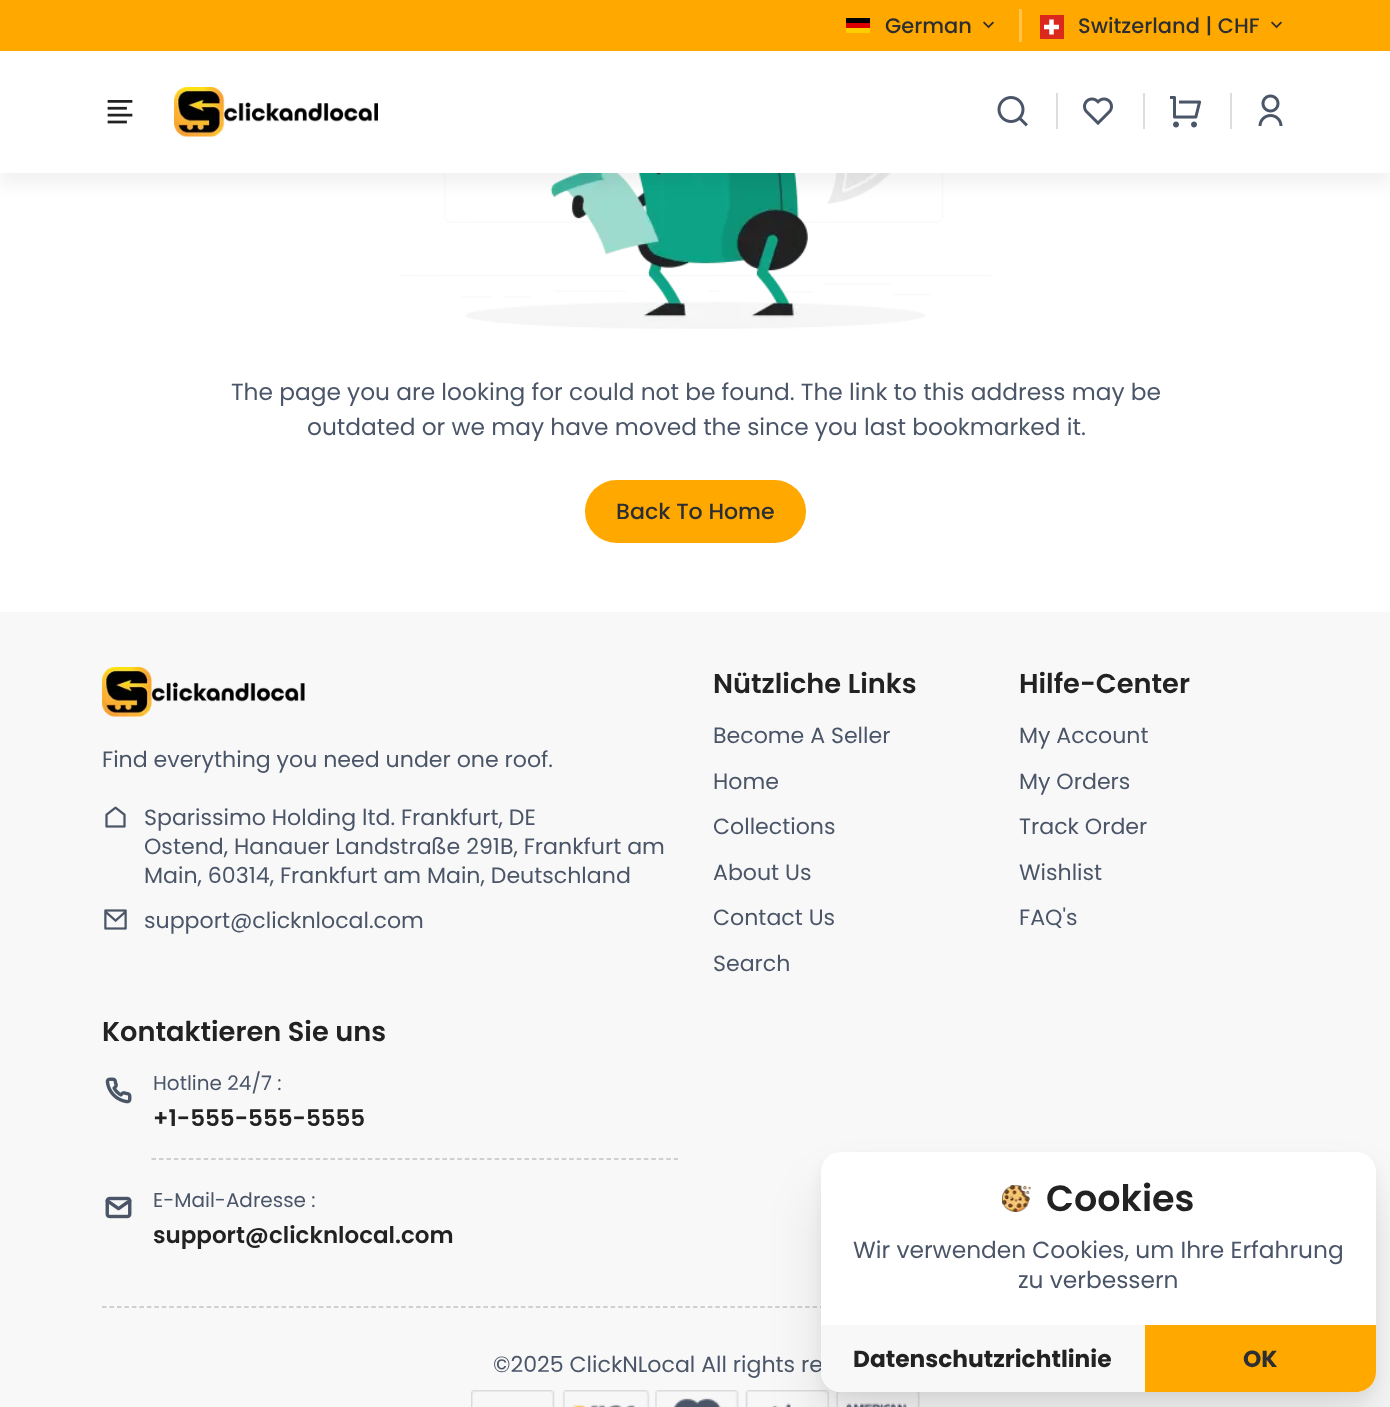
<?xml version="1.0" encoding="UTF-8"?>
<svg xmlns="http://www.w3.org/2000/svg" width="1390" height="1407">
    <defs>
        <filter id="blur1" x="-50%" y="-200%" width="200%" height="500%"><feGaussianBlur stdDeviation="7.5"/></filter>
        <filter id="blur2" x="-50%" y="-200%" width="200%" height="500%"><feGaussianBlur stdDeviation="26"/></filter>
        <filter id="blur3" x="-50%" y="-200%" width="200%" height="500%"><feGaussianBlur stdDeviation="6"/></filter>
    </defs>
    <rect width="100%" height="100%" fill="#FFFFFF"/>
    <image x="399" y="173" width="592" height="156" href="img_09.png"/>
    <rect x="0" y="12" width="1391" height="173" fill="#222222" fill-opacity="0.05" filter="url(#blur1)"/>
    <rect x="0" y="51" width="1390" height="122" fill="#FFFFFF"/>
    <rect x="0" y="0" width="1390" height="51" fill="#FFA800"/>
    <rect x="846" y="18" width="24" height="5" fill="#000000"/>
    <rect x="846" y="23" width="24" height="5" fill="#DD0000"/>
    <rect x="846" y="28" width="24" height="5" fill="#FFCE00"/>
    <text x="885" y="33" font-family="Poppins" font-size="21" font-weight="500" fill="#2D2E32">German</text>
    <image x="983" y="21" width="11" height="8" href="img_01.png"/>
    <rect x="1019" y="9" width="3" height="33" fill="#FFC24D"/>
    <image x="1040" y="15" width="24" height="24" href="img_02.png"/>
    <text x="1078" y="33" font-family="Poppins" font-size="21" font-weight="500" fill="#2D2E32">Switzerland | CHF</text>
    <image x="1271" y="21" width="11" height="8" href="img_01.png"/>
    <image x="107" y="100" width="26" height="24" href="img_03.png"/>
    <image x="174" y="87" width="204" height="50" href="img_04.png"/>
    <image x="997" y="96" width="31" height="31" href="img_05.png"/>
    <rect x="1056" y="93" width="2" height="36" fill="#DDDDDD"/>
    <image x="1083" y="97" width="30" height="29" href="img_06.png"/>
    <rect x="1143" y="93" width="2" height="36" fill="#DDDDDD"/>
    <image x="1170" y="96" width="32" height="32" href="img_07.png"/>
    <rect x="1230" y="93" width="2" height="36" fill="#DDDDDD"/>
    <image x="1258" y="94" width="25" height="32" href="img_08.png"/>
    <text x="231" y="400" font-family="Poppins" font-size="23.3" fill="#4A5568">The page you are looking for could not be found. The link to this address may be</text>
    <text x="307" y="435" font-family="Poppins" font-size="23.3" fill="#4A5568">outdated or we may have moved the since you last bookmarked it.</text>
    <rect x="585" y="480" width="221" height="63" rx="31.5" fill="#FFA800"/>
    <text x="616" y="519" font-family="Poppins" font-size="22.1" font-weight="500" fill="#2D2E32">Back To Home</text>
    <rect x="0" y="612" width="1390" height="795" fill="#F8F8F8"/>
    <image x="102" y="667" width="203" height="50" href="img_10.png"/>
    <text x="102" y="767" font-family="Poppins" font-size="22.1" fill="#4A5568">Find everything you need under one roof.</text>
    <image x="105" y="806" width="21" height="22" href="img_11.png"/>
    <text font-family="Poppins" font-size="22.1" fill="#4A5568">
        <tspan x="144" y="825">Sparissimo Holding ltd. Frankfurt, DE</tspan>
        <tspan x="144" y="854">Ostend, Hanauer Landstraße 291B, Frankfurt am</tspan>
        <tspan x="144" y="883">Main, 60314, Frankfurt am Main, Deutschland</tspan>
    </text>
    <image x="104" y="909" width="23" height="21" href="img_12.png"/>
    <text x="144" y="928" font-family="Poppins" font-size="22.1" fill="#4A5568">support@clicknlocal.com</text>
    <text x="713" y="693" font-family="Poppins" font-size="27.25" font-weight="600" fill="#222222">Nützliche Links</text>
    <text x="713" y="743" font-family="Poppins" font-size="22.1" fill="#4A5568">Become A Seller</text>
    <text x="713" y="789" font-family="Poppins" font-size="22.1" fill="#4A5568">Home</text>
    <text x="713" y="834" font-family="Poppins" font-size="22.1" fill="#4A5568">Collections</text>
    <text x="713" y="880" font-family="Poppins" font-size="22.1" fill="#4A5568">About Us</text>
    <text x="713" y="925" font-family="Poppins" font-size="22.1" fill="#4A5568">Contact Us</text>
    <text x="713" y="971" font-family="Poppins" font-size="22.1" fill="#4A5568">Search</text>
    <text x="1019" y="693" font-family="Poppins" font-size="27.25" font-weight="600" fill="#222222">Hilfe-Center</text>
    <text x="1019" y="743" font-family="Poppins" font-size="22.1" fill="#4A5568">My Account</text>
    <text x="1019" y="789" font-family="Poppins" font-size="22.1" fill="#4A5568">My Orders</text>
    <text x="1019" y="834" font-family="Poppins" font-size="22.1" fill="#4A5568">Track Order</text>
    <text x="1019" y="880" font-family="Poppins" font-size="22.1" fill="#4A5568">Wishlist</text>
    <text x="1019" y="925" font-family="Poppins" font-size="22.1" fill="#4A5568">FAQ's</text>
    <text x="102" y="1041" font-family="Poppins" font-size="27.25" font-weight="600" fill="#222222">Kontaktieren Sie uns</text>
    <image x="105" y="1077" width="27" height="27" href="img_13.png"/>
    <text x="153" y="1090" font-family="Poppins" font-size="20" fill="#4A5568">Hotline 24/7 :</text>
    <text x="153" y="1126" font-family="Poppins" font-size="23" font-weight="600" fill="#222222">+1-555-555-5555</text>
    <path d="M 151.5 1159 H 678" fill="none" stroke="#C1C1C1" stroke-width="1.5" stroke-dasharray="4.5 2.96"/>
    <image x="105" y="1196" width="27" height="23" href="img_14.png"/>
    <text x="153" y="1207" font-family="Poppins" font-size="20" fill="#4A5568">E-Mail-Adresse :</text>
    <text x="153" y="1243" font-family="Poppins" font-size="23" font-weight="600" fill="#222222">support@clicknlocal.com</text>
    <path d="M 102 1307 H 1288.5" fill="none" stroke="#C1C1C1" stroke-width="1.5" stroke-dasharray="4.5 2.98"/>
    <text x="493" y="1372" font-family="Poppins" font-size="22.1" fill="#4A5568">©2025 ClickNLocal All rights re</text>
    <image x="471" y="1390" width="449" height="17" href="img_15.png"/>
    <rect x="821" y="1188" width="555" height="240" rx="20" fill="#222222" fill-opacity="0.1" filter="url(#blur2)"/>
    <rect x="821" y="1158" width="555" height="240" rx="20" fill="#222222" fill-opacity="0.05" filter="url(#blur3)"/>
    <rect x="821" y="1152" width="555" height="240" rx="20" fill="#FFFFFF"/>
    <image x="1002" y="1185" width="29" height="27" href="img_16.png"/>
    <text x="1046" y="1211" font-family="Poppins" font-size="36.5" font-weight="600" fill="#222222">Cookies</text>
    <text x="853" y="1258" font-family="Poppins" font-size="23.3" fill="#4A5568">Wir verwenden Cookies, um Ihre Erfahrung</text>
    <text x="1018" y="1288" font-family="Poppins" font-size="23.3" fill="#4A5568">zu verbessern</text>
    <path d="M 821 1325 H 1145 V 1392 H 841 C 830 1392 821 1383 821 1372 Z" fill="#F8F8F8"/>
    <text x="853" y="1367" font-family="Poppins" font-size="23.3" font-weight="700" fill="#222222">Datenschutzrichtlinie</text>
    <path d="M 1145 1325 H 1376 V 1372 C 1376 1383 1367 1392 1356 1392 H 1145 Z" fill="#FFA800"/>
    <text x="1243" y="1367" font-family="Poppins" font-size="23.3" font-weight="700" fill="#2D2E32">OK</text>
</svg>
